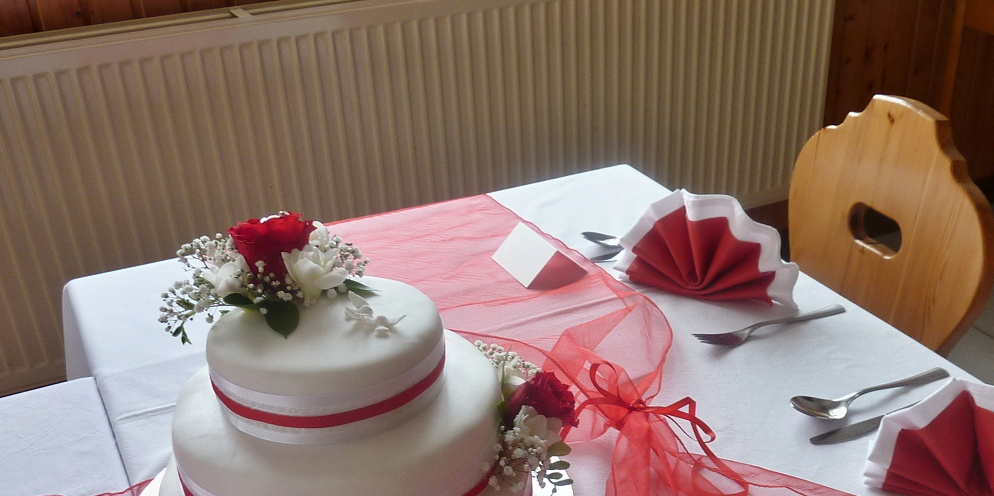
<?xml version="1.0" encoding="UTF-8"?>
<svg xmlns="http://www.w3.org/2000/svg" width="994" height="496">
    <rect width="100%" height="100%" fill="#FFFFFF"/>
    <image x="0" y="0" width="994" height="496" href="img_01.png"/>
</svg>
